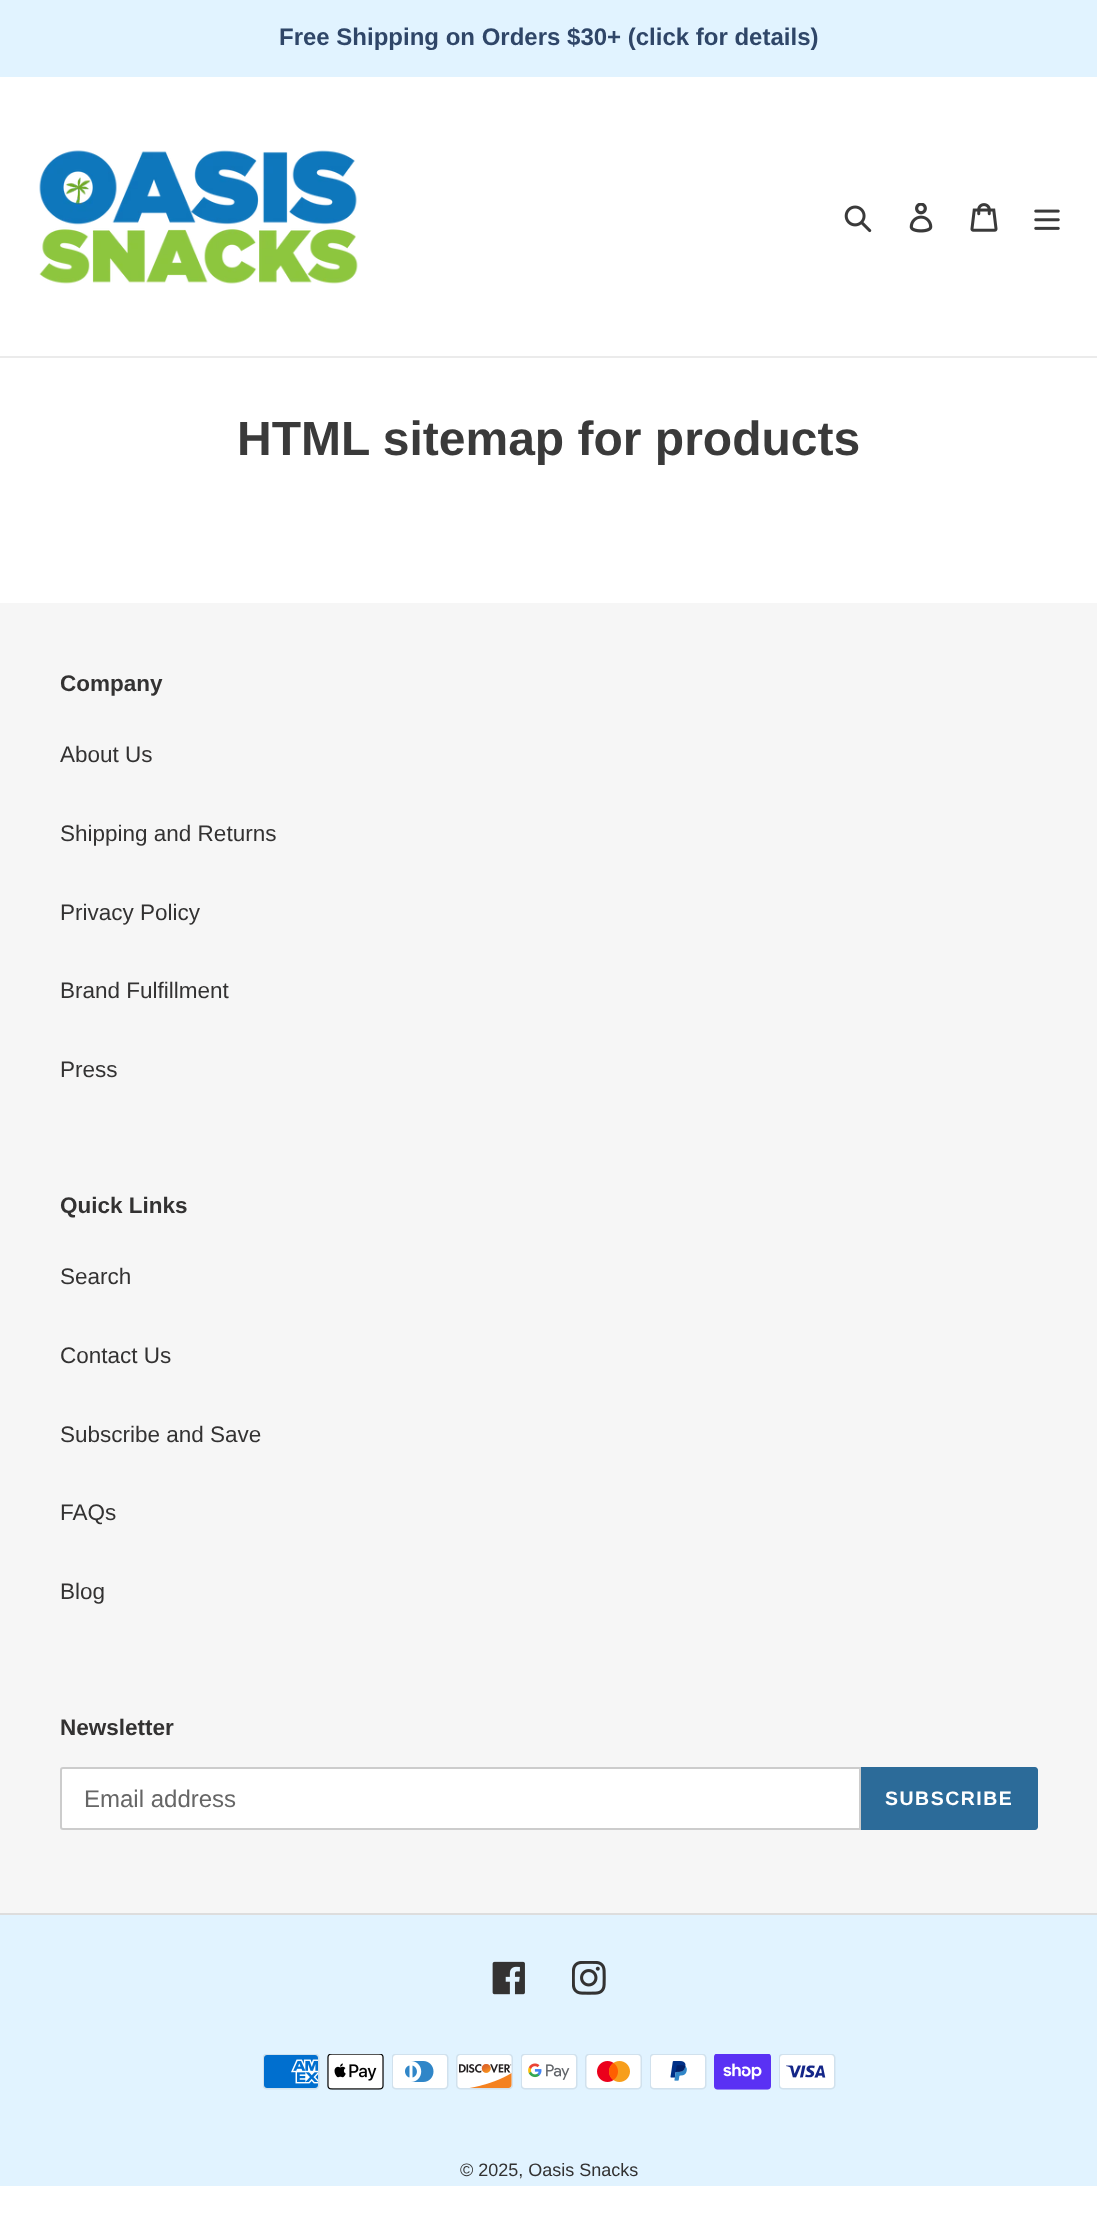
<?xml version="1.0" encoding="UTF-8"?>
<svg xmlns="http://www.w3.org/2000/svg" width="1097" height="2227">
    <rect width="100%" height="100%" fill="#FFFFFF"/>
    <rect x="0" y="0" width="1097" height="77" fill="#E1F3FF"/>
    <text x="279" y="45" font-family="Liberation Sans" font-size="24" font-weight="700" fill="#2F4668">Free Shipping on Orders $30+ (click for details)</text>
    <rect x="0" y="356" width="1097" height="2" fill="#EBEBEB"/>
    <image x="39" y="150" width="319" height="134" href="img_01.png"/>
    <image x="844" y="205" width="28" height="28" href="img_02.png"/>
    <image x="909" y="203" width="24" height="30" href="img_03.png"/>
    <image x="970" y="203" width="28" height="29" href="img_04.png"/>
    <image x="1034" y="209" width="26" height="21" href="img_05.png"/>
    <text x="237" y="455" font-family="Liberation Sans" font-size="48" font-weight="700" fill="#3A3A3A">HTML sitemap for products</text>
    <rect x="0" y="603" width="1097" height="1310" fill="#F6F6F6"/>
    <text x="60" y="691" font-family="Liberation Sans" font-size="22.5" font-weight="700" fill="#333232">Company</text>
    <text x="60" y="762" font-family="Liberation Sans" font-size="22.5" fill="#333232">About Us</text>
    <text x="60" y="841" font-family="Liberation Sans" font-size="22.5" fill="#333232">Shipping and Returns</text>
    <text x="60" y="920" font-family="Liberation Sans" font-size="22.5" fill="#333232">Privacy Policy</text>
    <text x="60" y="998" font-family="Liberation Sans" font-size="22.5" fill="#333232">Brand Fulfillment</text>
    <text x="60" y="1077" font-family="Liberation Sans" font-size="22.5" fill="#333232">Press</text>
    <text x="60" y="1213" font-family="Liberation Sans" font-size="22.5" font-weight="700" fill="#333232">Quick Links</text>
    <text x="60" y="1284" font-family="Liberation Sans" font-size="22.5" fill="#333232">Search</text>
    <text x="60" y="1363" font-family="Liberation Sans" font-size="22.5" fill="#333232">Contact Us</text>
    <text x="60" y="1442" font-family="Liberation Sans" font-size="22.5" fill="#333232">Subscribe and Save</text>
    <text x="60" y="1520" font-family="Liberation Sans" font-size="22.5" fill="#333232">FAQs</text>
    <text x="60" y="1599" font-family="Liberation Sans" font-size="22.5" fill="#333232">Blog</text>
    <text x="60" y="1735" font-family="Liberation Sans" font-size="22.5" font-weight="700" fill="#333232">Newsletter</text>
    <path d="M 63 1768 H 860 V 1829 H 63 C 62 1829 61 1828 61 1827 V 1770 C 61 1769 62 1768 63 1768 Z" fill="#FFFFFF" stroke="#CCCCCC" stroke-width="2"/>
    <text x="84" y="1807" font-family="Liberation Sans" font-size="24" fill="#666666">Email address</text>
    <path d="M 861 1767 H 1035 C 1036.5 1767 1038 1768.5 1038 1770 V 1827 C 1038 1828.5 1036.5 1830 1035 1830 H 861 Z" fill="#2C6B99"/>
    <text x="885" y="1805" font-family="Liberation Sans" font-size="19.5" font-weight="700" letter-spacing="1.5" fill="#FFFFFF">SUBSCRIBE</text>
    <rect x="0" y="1915" width="1097" height="271" fill="#E1F3FF"/>
    <rect x="0" y="1913" width="1097" height="2" fill="#DDDDDD"/>
    <image x="492" y="1961" width="33" height="34" href="img_06.png"/>
    <image x="572" y="1961" width="34" height="34" href="img_07.png"/>
    <image x="263" y="2054" width="57" height="36" href="img_08.png"/>
    <image x="327" y="2054" width="57" height="36" href="img_09.png"/>
    <image x="392" y="2054" width="57" height="36" href="img_10.png"/>
    <image x="456" y="2054" width="57" height="36" href="img_11.png"/>
    <image x="521" y="2054" width="57" height="36" href="img_12.png"/>
    <image x="585" y="2054" width="57" height="36" href="img_13.png"/>
    <image x="650" y="2054" width="57" height="36" href="img_14.png"/>
    <image x="714" y="2054" width="57" height="36" href="img_15.png"/>
    <image x="779" y="2054" width="57" height="36" href="img_16.png"/>
    <text x="460" y="2176" font-family="Liberation Sans" font-size="18" fill="#333232">© 2025, Oasis Snacks</text>
</svg>
